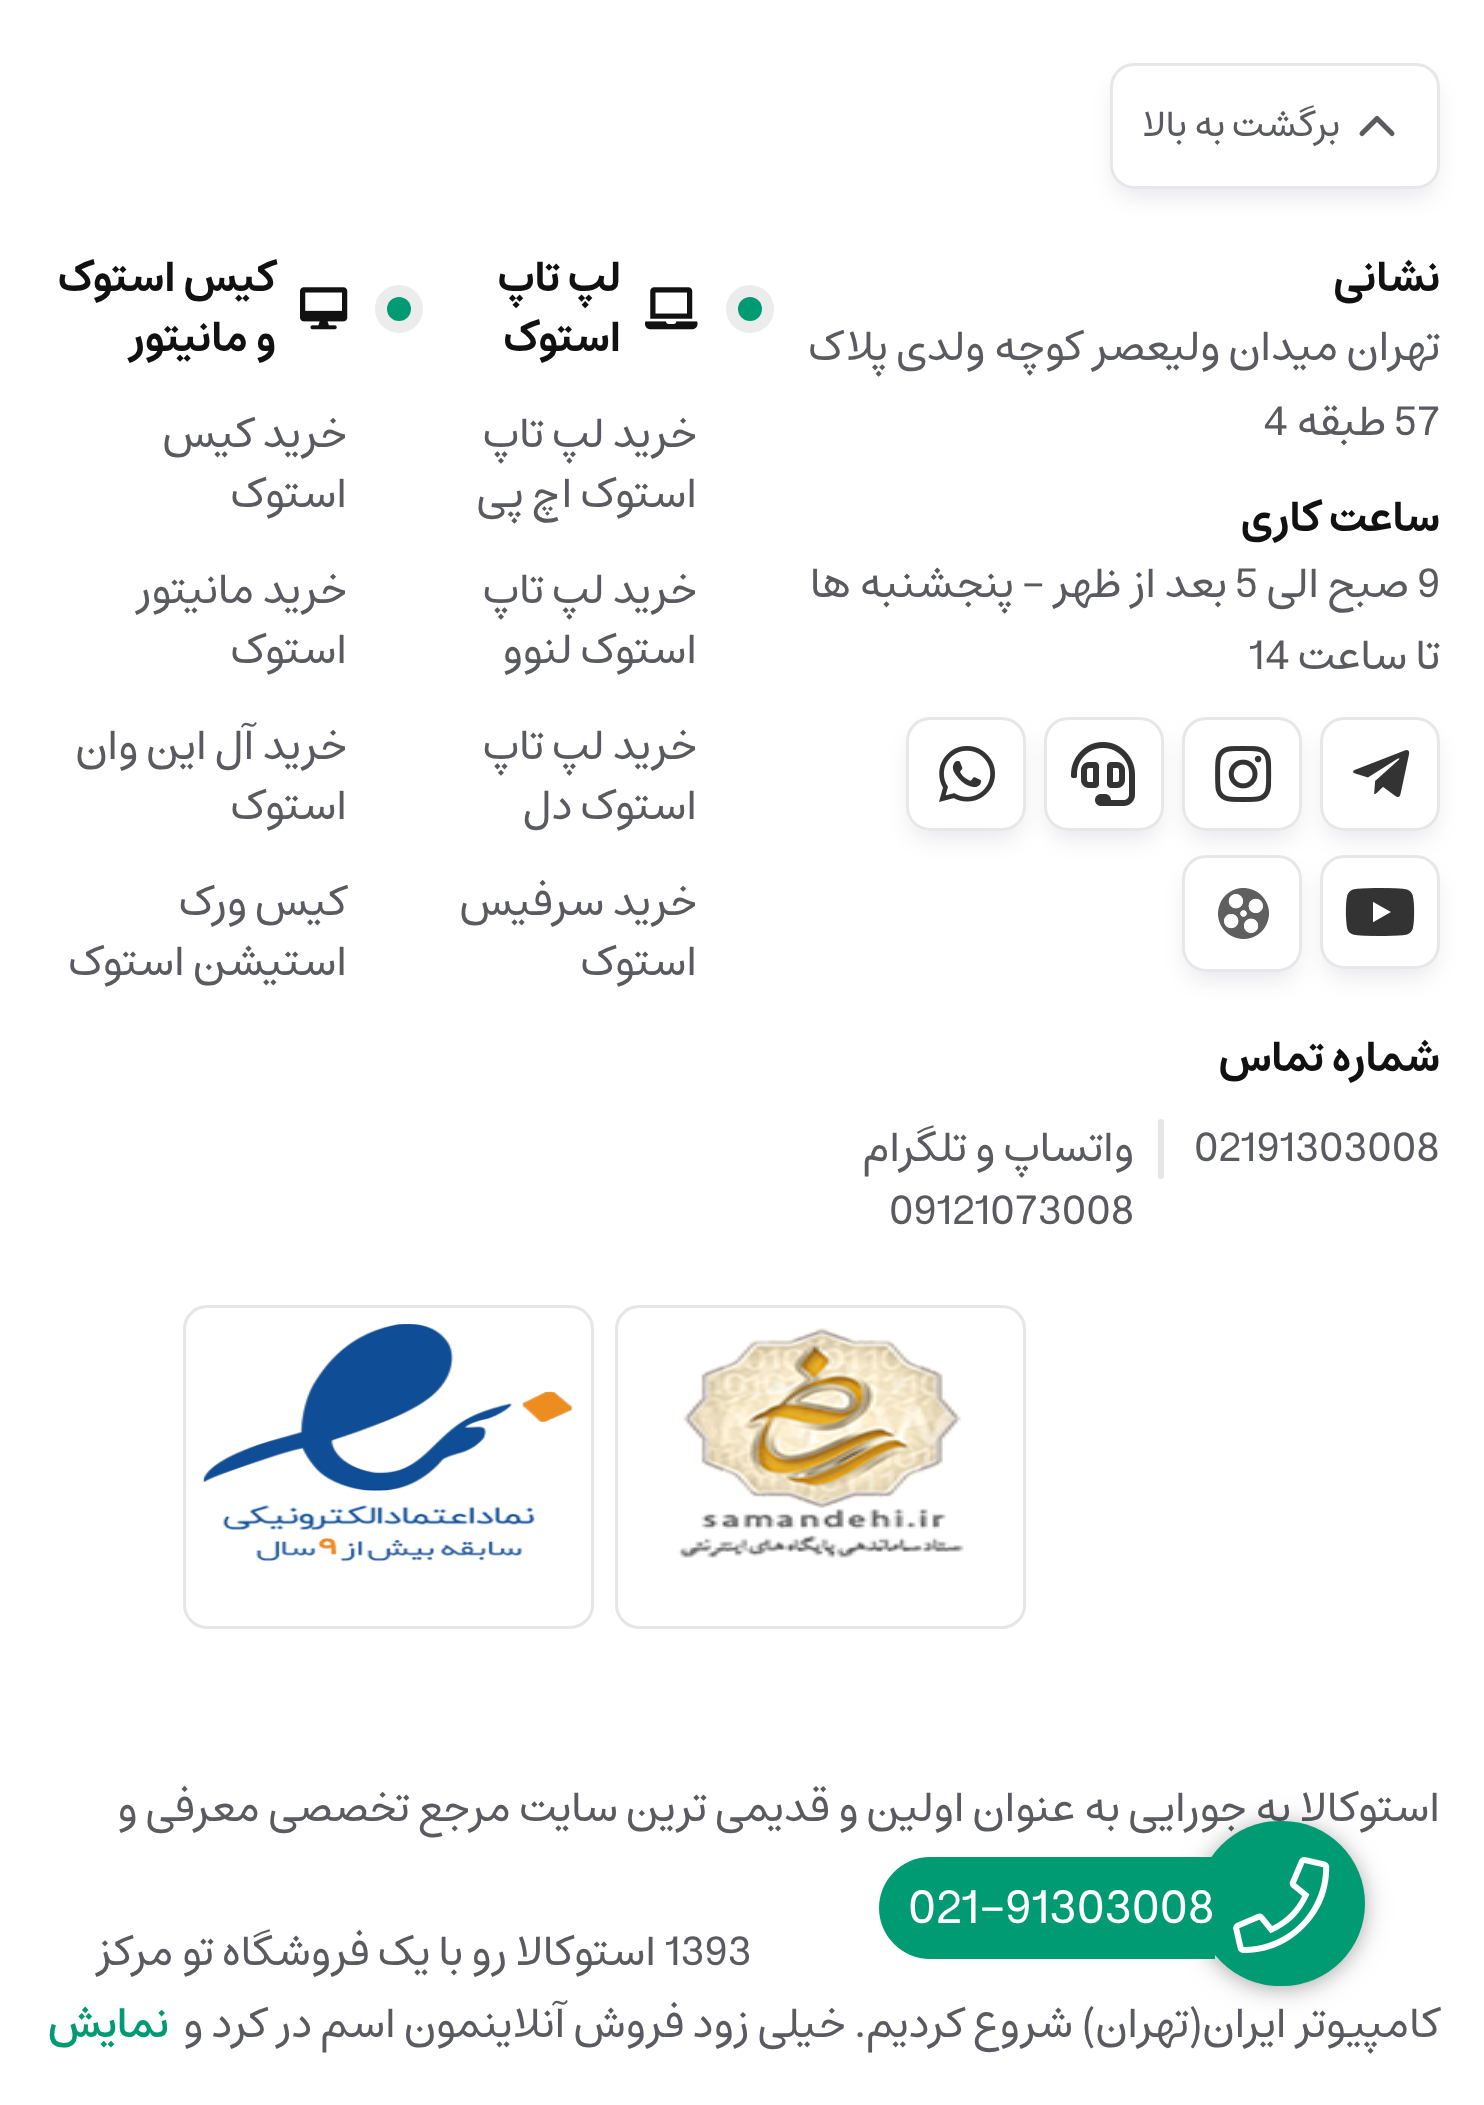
<?xml version="1.0" encoding="UTF-8"?>
<svg xmlns="http://www.w3.org/2000/svg" width="1484" height="2105">
    <defs>
        <clipPath id="clip1"><path d="M 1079 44 H 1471 V 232 H 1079 Z M 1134 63 H 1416 C 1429.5 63 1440 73.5 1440 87 V 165 C 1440 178.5 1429.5 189 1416 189 H 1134 C 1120.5 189 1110 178.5 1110 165 V 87 C 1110 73.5 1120.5 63 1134 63 Z" clip-rule="evenodd"/></clipPath>
        <filter id="blur1" x="-50%" y="-200%" width="200%" height="500%"><feGaussianBlur stdDeviation="12"/></filter>
        <clipPath id="clip2"><path d="M 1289 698 H 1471 V 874 H 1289 Z M 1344 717 H 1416 C 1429.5 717 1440 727.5 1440 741 V 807 C 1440 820.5 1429.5 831 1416 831 H 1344 C 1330.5 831 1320 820.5 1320 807 V 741 C 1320 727.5 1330.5 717 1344 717 Z" clip-rule="evenodd"/></clipPath>
        <clipPath id="clip3"><path d="M 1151 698 H 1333 V 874 H 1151 Z M 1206 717 H 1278 C 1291.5 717 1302 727.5 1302 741 V 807 C 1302 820.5 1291.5 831 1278 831 H 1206 C 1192.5 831 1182 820.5 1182 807 V 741 C 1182 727.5 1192.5 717 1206 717 Z" clip-rule="evenodd"/></clipPath>
        <clipPath id="clip4"><path d="M 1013 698 H 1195 V 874 H 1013 Z M 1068 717 H 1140 C 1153.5 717 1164 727.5 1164 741 V 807 C 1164 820.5 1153.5 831 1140 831 H 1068 C 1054.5 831 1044 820.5 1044 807 V 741 C 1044 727.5 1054.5 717 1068 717 Z" clip-rule="evenodd"/></clipPath>
        <clipPath id="clip5"><path d="M 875 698 H 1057 V 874 H 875 Z M 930 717 H 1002 C 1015.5 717 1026 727.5 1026 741 V 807 C 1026 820.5 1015.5 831 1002 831 H 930 C 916.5 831 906 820.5 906 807 V 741 C 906 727.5 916.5 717 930 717 Z" clip-rule="evenodd"/></clipPath>
        <clipPath id="clip6"><path d="M 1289 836 H 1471 V 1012 H 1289 Z M 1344 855 H 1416 C 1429.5 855 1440 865.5 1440 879 V 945 C 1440 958.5 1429.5 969 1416 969 H 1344 C 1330.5 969 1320 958.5 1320 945 V 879 C 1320 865.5 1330.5 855 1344 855 Z" clip-rule="evenodd"/></clipPath>
        <clipPath id="clip7"><path d="M 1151 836 H 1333 V 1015 H 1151 Z M 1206 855 H 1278 C 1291.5 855 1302 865.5 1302 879 V 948 C 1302 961.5 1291.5 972 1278 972 H 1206 C 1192.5 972 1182 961.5 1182 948 V 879 C 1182 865.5 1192.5 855 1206 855 Z" clip-rule="evenodd"/></clipPath>
        <filter id="blur2" x="-50%" y="-200%" width="200%" height="500%"><feGaussianBlur stdDeviation="15"/></filter>
        <filter id="blur3" x="-50%" y="-200%" width="200%" height="500%"><feGaussianBlur stdDeviation="9"/></filter>
    </defs>
    <rect width="100%" height="100%" fill="#FFFFFF"/>
    <g clip-path="url(#clip1)">
        <rect x="1116" y="81" width="318" height="114" rx="18" fill="#101828" fill-opacity="0.1" filter="url(#blur1)"/>
    </g>
    <rect x="1111.5" y="64.5" width="327" height="123" rx="22.5" fill="none" stroke="#E7E7E7" stroke-width="3"/>
    <path d="M 1392 133.5 L 1377 118.5 L 1362 133.5" fill="none" stroke="#5A5B60" stroke-width="5" stroke-linecap="round" stroke-linejoin="round"/>
    <text x="1340" y="136" font-family="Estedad" font-size="36" direction="rtl" fill="#5A5B60">برگشت به بالا</text>
    <text x="1440" y="291" font-family="Estedad" font-size="42" font-weight="600" direction="rtl" fill="#111112">نشانی</text>
    <text x="1440" y="360" font-family="Estedad" font-size="42" direction="rtl" fill="#5A5B60">تهران میدان ولیعصر کوچه ولدی پلاک</text>
    <text x="1394" y="435" font-family="Estedad" font-size="42" fill="#5A5B60">57</text>
    <text x="1386" y="435" font-family="Estedad" font-size="42" direction="rtl" fill="#5A5B60">طبقه</text>
    <text x="1263" y="435" font-family="Estedad" font-size="42" fill="#5A5B60">4</text>
    <text x="1440" y="531" font-family="Estedad" font-size="42" font-weight="600" direction="rtl" fill="#111112">ساعت کاری</text>
    <text x="1417" y="597" font-family="Estedad" font-size="42" fill="#5A5B60">9</text>
    <text x="1409" y="597" font-family="Estedad" font-size="42" direction="rtl" fill="#5A5B60">صبح الی</text>
    <text x="1235" y="597" font-family="Estedad" font-size="42" fill="#5A5B60">5</text>
    <text x="1227" y="597" font-family="Estedad" font-size="42" direction="rtl" fill="#5A5B60">بعد از ظهر - پنجشنبه ها</text>
    <text x="1440" y="669" font-family="Estedad" font-size="42" direction="rtl" fill="#5A5B60">تا ساعت</text>
    <text x="1249" y="669" font-family="Estedad" font-size="42" fill="#5A5B60">14</text>
    <g clip-path="url(#clip2)">
        <rect x="1326" y="735" width="108" height="102" rx="18" fill="#101828" fill-opacity="0.1" filter="url(#blur1)"/>
    </g>
    <rect x="1321.5" y="718.5" width="117" height="111" rx="22.5" fill="none" stroke="#E7E7E7" stroke-width="3"/>
    <image x="1353" y="750" width="57" height="47" href="img_01.png"/>
    <g clip-path="url(#clip3)">
        <rect x="1188" y="735" width="108" height="102" rx="18" fill="#101828" fill-opacity="0.1" filter="url(#blur1)"/>
    </g>
    <rect x="1183.5" y="718.5" width="117" height="111" rx="22.5" fill="none" stroke="#E7E7E7" stroke-width="3"/>
    <image x="1215" y="746" width="57" height="56" href="img_02.png"/>
    <g clip-path="url(#clip4)">
        <rect x="1050" y="735" width="108" height="102" rx="18" fill="#101828" fill-opacity="0.1" filter="url(#blur1)"/>
    </g>
    <rect x="1045.5" y="718.5" width="117" height="111" rx="22.5" fill="none" stroke="#E7E7E7" stroke-width="3"/>
    <image x="1071" y="742" width="64" height="64" href="img_03.png"/>
    <g clip-path="url(#clip5)">
        <rect x="912" y="735" width="108" height="102" rx="18" fill="#101828" fill-opacity="0.1" filter="url(#blur1)"/>
    </g>
    <rect x="907.5" y="718.5" width="117" height="111" rx="22.5" fill="none" stroke="#E7E7E7" stroke-width="3"/>
    <image x="939" y="746" width="56" height="56" href="img_04.png"/>
    <g clip-path="url(#clip6)">
        <rect x="1326" y="873" width="108" height="102" rx="18" fill="#101828" fill-opacity="0.1" filter="url(#blur1)"/>
    </g>
    <rect x="1321.5" y="856.5" width="117" height="111" rx="22.5" fill="none" stroke="#E7E7E7" stroke-width="3"/>
    <image x="1345" y="888" width="70" height="48" href="img_05.png"/>
    <g clip-path="url(#clip7)">
        <rect x="1188" y="873" width="108" height="105" rx="18" fill="#101828" fill-opacity="0.1" filter="url(#blur1)"/>
    </g>
    <rect x="1183.5" y="856.5" width="117" height="114" rx="22.5" fill="none" stroke="#E7E7E7" stroke-width="3"/>
    <image x="1218" y="888" width="51" height="51" href="img_06.png"/>
    <text x="1440" y="1071" font-family="Estedad" font-size="42" font-weight="600" direction="rtl" fill="#111112">شماره تماس</text>
    <text x="1194" y="1161" font-family="Estedad" font-size="42" fill="#5A5B60">02191303008</text>
    <rect x="1158" y="1119" width="6" height="60" rx="3" fill="#E6E6E7"/>
    <text x="1134" y="1161" font-family="Estedad" font-size="42" direction="rtl" fill="#5A5B60">واتساپ و تلگرام</text>
    <text x="889" y="1224" font-family="Estedad" font-size="42" fill="#5A5B60">09121073008</text>
    <circle cx="750" cy="309" r="24" fill="#ECECEC"/>
    <image x="645" y="287" width="53" height="43" href="img_07.png"/>
    <text x="621" y="291" font-family="Estedad" font-size="42" font-weight="600" direction="rtl" fill="#111112">لپ تاپ</text>
    <circle cx="750" cy="309" r="12" fill="#009B72"/>
    <text x="621" y="351" font-family="Estedad" font-size="42" font-weight="600" direction="rtl" fill="#111112">استوک</text>
    <text font-family="Estedad" font-size="42" direction="rtl" fill="#5A5B60">
        <tspan x="697" y="447">خرید لپ تاپ</tspan>
        <tspan x="697" y="507">استوک اچ پی</tspan>
    </text>
    <text font-family="Estedad" font-size="42" direction="rtl" fill="#5A5B60">
        <tspan x="697" y="603">خرید لپ تاپ</tspan>
        <tspan x="697" y="663">استوک لنوو</tspan>
    </text>
    <text font-family="Estedad" font-size="42" direction="rtl" fill="#5A5B60">
        <tspan x="697" y="759">خرید لپ تاپ</tspan>
        <tspan x="697" y="819">استوک دل</tspan>
    </text>
    <text font-family="Estedad" font-size="42" direction="rtl" fill="#5A5B60">
        <tspan x="697" y="915">خرید سرفیس</tspan>
        <tspan x="697" y="975">استوک</tspan>
    </text>
    <circle cx="399" cy="309" r="24" fill="#ECECEC"/>
    <image x="300" y="287" width="48" height="43" href="img_08.png"/>
    <text x="276" y="291" font-family="Estedad" font-size="42" font-weight="600" direction="rtl" fill="#111112">کیس استوک</text>
    <circle cx="399" cy="309" r="12" fill="#009B72"/>
    <text x="276" y="351" font-family="Estedad" font-size="42" font-weight="600" direction="rtl" fill="#111112">و مانیتور</text>
    <text font-family="Estedad" font-size="42" direction="rtl" fill="#5A5B60">
        <tspan x="347" y="447">خرید کیس</tspan>
        <tspan x="347" y="507">استوک</tspan>
    </text>
    <text font-family="Estedad" font-size="42" direction="rtl" fill="#5A5B60">
        <tspan x="347" y="603">خرید مانیتور</tspan>
        <tspan x="347" y="663">استوک</tspan>
    </text>
    <text font-family="Estedad" font-size="42" direction="rtl" fill="#5A5B60">
        <tspan x="347" y="759">خرید آل این وان</tspan>
        <tspan x="347" y="819">استوک</tspan>
    </text>
    <text font-family="Estedad" font-size="42" direction="rtl" fill="#5A5B60">
        <tspan x="347" y="915">کیس ورک</tspan>
        <tspan x="347" y="975">استیشن استوک</tspan>
    </text>
    <rect x="616.5" y="1306.5" width="408" height="321" rx="22.5" fill="none" stroke="#E6E6E7" stroke-width="3"/>
    <image x="677" y="1328" width="287" height="230" href="img_09.png"/>
    <rect x="184.5" y="1306.5" width="408" height="321" rx="22.5" fill="none" stroke="#E6E6E7" stroke-width="3"/>
    <image x="202" y="1324" width="372" height="238" href="img_10.png"/>
    <text x="1440" y="1821" font-family="Estedad" font-size="42" direction="rtl" fill="#5A5B60">استوکالا یه جورایی به عنوان اولین و قدیمی ترین سایت مرجع تخصصی معرفی و</text>
    <text x="665" y="1965" font-family="Estedad" font-size="42" fill="#5A5B60">1393</text>
    <text x="656" y="1965" font-family="Estedad" font-size="42" direction="rtl" fill="#5A5B60">استوکالا رو با یک فروشگاه تو مرکز</text>
    <text x="1440" y="2037" font-family="Estedad" font-size="42" direction="rtl" fill="#5A5B60">کامپیوتر ایران(تهران)</text>
    <text x="1073" y="2037" font-family="Estedad" font-size="42" direction="rtl" fill="#5A5B60">شروع کردیم. خیلی زود فروش آنلاینمون اسم در کرد و</text>
    <text x="169" y="2037" font-family="Estedad" font-size="42" font-weight="500" direction="rtl" fill="#009B72">نمایش</text>
    <rect x="1197" y="1824" width="168" height="165" rx="82.5" fill="#000000" fill-opacity="0.15" filter="url(#blur2)"/>
    <rect x="1197" y="1824" width="168" height="165" rx="82.5" fill="#000000" fill-opacity="0.2" filter="url(#blur3)"/>
    <rect x="1197" y="1821" width="168" height="165" rx="82.5" fill="#009B72"/>
    <image x="1233" y="1857" width="97" height="96" href="img_11.png"/>
    <path d="M 930 1857 H 1215 V 1959 H 930 C 902 1959 879 1936 879 1908 C 879 1880 902 1857 930 1857 Z" fill="#009B72"/>
    <text x="908" y="1923" font-family="Estedad" font-size="48" fill="#FFFFFF">021-91303008</text>
</svg>
